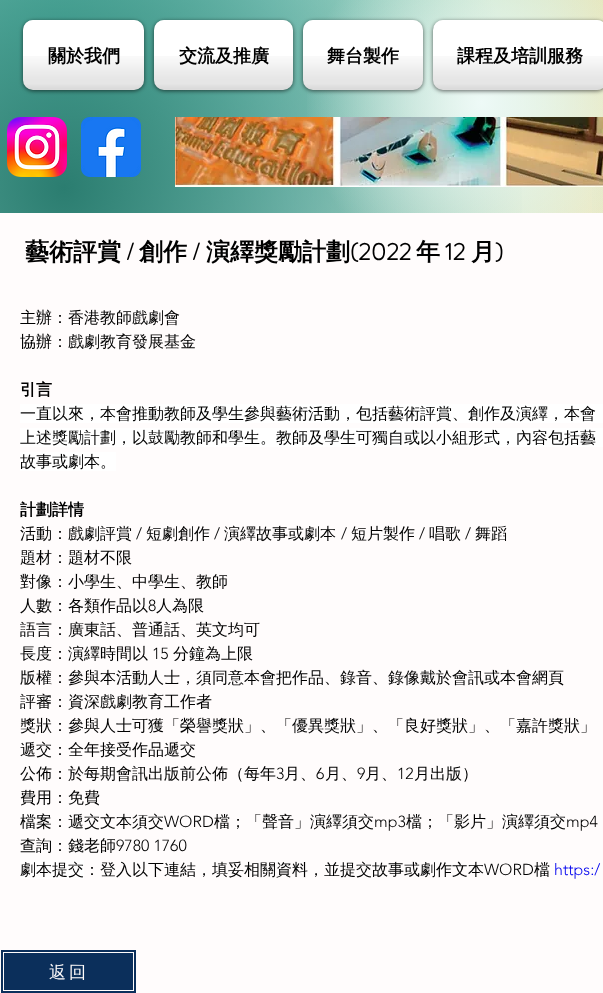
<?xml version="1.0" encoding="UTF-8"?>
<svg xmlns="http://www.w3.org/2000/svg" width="603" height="993">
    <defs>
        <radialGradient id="g1" gradientUnits="userSpaceOnUse" cx="918" cy="24" r="937"><stop offset="0" stop-color="#FFD97A"/><stop offset="0.7" stop-color="#FFFCFC"/></radialGradient>
        <radialGradient id="g2" gradientUnits="userSpaceOnUse" cx="60" cy="27" r="938"><stop offset="0" stop-color="#6AD1C1"/><stop offset="0.7" stop-color="#6AD1C1" stop-opacity="0"/></radialGradient>
        <radialGradient id="g3" gradientUnits="userSpaceOnUse" cx="64" cy="188" r="935"><stop offset="0" stop-color="#2A7C6F" stop-opacity="0.99"/><stop offset="0.5" stop-color="#2A7C6F" stop-opacity="0"/></radialGradient>
        <radialGradient id="g4" gradientUnits="userSpaceOnUse" cx="980" cy="213" r="1003"><stop offset="0" stop-color="#9CE0D6"/><stop offset="0.4" stop-color="#9CE0D6" stop-opacity="0"/></radialGradient>
        <radialGradient id="g5" gradientUnits="userSpaceOnUse" cx="482" cy="103" r="510"><stop offset="0" stop-color="#EEFAF7"/><stop offset="0.35" stop-color="#EEFAF7" stop-opacity="0"/></radialGradient>
        <filter id="blur1" x="-50%" y="-200%" width="200%" height="500%"><feGaussianBlur stdDeviation="2"/></filter>
    </defs>
    <rect width="100%" height="100%" fill="#FFFCFC"/>
    <rect x="275" y="0" width="328" height="213" fill="url(#g1)"/>
    <rect x="0" y="0" width="603" height="213" fill="url(#g2)"/>
    <rect x="0" y="0" width="522" height="213" fill="url(#g3)"/>
    <rect x="592" y="124" width="11" height="89" fill="url(#g4)"/>
    <rect x="307" y="0" width="296" height="213" fill="url(#g5)"/>
    <rect x="23" y="21" width="121" height="70" rx="10" fill="#000000" fill-opacity="0.6" filter="url(#blur1)"/>
    <rect x="23" y="20" width="121" height="70" rx="10" fill="#FFFFFF"/>
    <image x="23" y="20" width="121" height="9" href="img_01.png"/>
    <image x="23" y="56" width="121" height="34" href="img_02.png"/>
    <text x="48" y="62" font-family="WenQuanYi Zen Hei" font-size="18" font-weight="700" fill="#000000">關於我們</text>
    <rect x="154" y="21" width="139" height="70" rx="10" fill="#000000" fill-opacity="0.6" filter="url(#blur1)"/>
    <rect x="154" y="20" width="139" height="70" rx="10" fill="#FFFFFF"/>
    <image x="154" y="20" width="139" height="9" href="img_03.png"/>
    <image x="154" y="56" width="139" height="34" href="img_04.png"/>
    <text x="179" y="62" font-family="WenQuanYi Zen Hei" font-size="18" font-weight="700" fill="#000000">交流及推廣</text>
    <rect x="303" y="21" width="120" height="70" rx="10" fill="#000000" fill-opacity="0.6" filter="url(#blur1)"/>
    <rect x="303" y="20" width="120" height="70" rx="10" fill="#FFFFFF"/>
    <image x="303" y="20" width="120" height="9" href="img_05.png"/>
    <image x="303" y="56" width="120" height="34" href="img_06.png"/>
    <text x="327" y="62" font-family="WenQuanYi Zen Hei" font-size="18" font-weight="700" fill="#000000">舞台製作</text>
    <rect x="433" y="21" width="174" height="70" rx="10" fill="#000000" fill-opacity="0.6" filter="url(#blur1)"/>
    <rect x="433" y="20" width="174" height="70" rx="10" fill="#FFFFFF"/>
    <image x="433" y="20" width="170" height="7" href="img_07.png"/>
    <image x="433" y="56" width="170" height="34" href="img_08.png"/>
    <text x="457" y="62" font-family="WenQuanYi Zen Hei" font-size="18" font-weight="700" fill="#000000">課程及培訓服務</text>
    <image x="7" y="117" width="60" height="60" href="img_09.png"/>
    <image x="81" y="117" width="60" height="60" href="img_10.png"/>
    <image x="175" y="117" width="428" height="70" href="img_11.png"/>
    <text x="25" y="260" font-family="WenQuanYi Zen Hei" font-size="24" font-weight="700" fill="#000000">藝術評賞</text>
    <text x="126" y="260" font-family="'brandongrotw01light'" font-size="24" font-weight="700" fill="#000000">/</text>
    <text x="139" y="260" font-family="WenQuanYi Zen Hei" font-size="24" font-weight="700" fill="#000000">創作</text>
    <text x="192" y="260" font-family="'brandongrotw01light'" font-size="24" font-weight="700" fill="#000000">/</text>
    <text x="206" y="260" font-family="WenQuanYi Zen Hei" font-size="24" font-weight="700" fill="#000000">演繹獎勵計劃</text>
    <text x="350" y="260" font-family="'brandongrotw01light'" font-size="24" font-weight="700" fill="#000000">(2022</text>
    <text x="416" y="260" font-family="WenQuanYi Zen Hei" font-size="24" font-weight="700" fill="#000000">年</text>
    <text x="445" y="260" font-family="'brandongrotw01light'" font-size="24" font-weight="700" fill="#000000">12</text>
    <text x="471" y="260" font-family="WenQuanYi Zen Hei" font-size="24" font-weight="700" fill="#000000">月</text>
    <text x="495" y="260" font-family="'brandongrotw01light'" font-size="24" font-weight="700" fill="#000000">)</text>
    <text font-family="WenQuanYi Zen Hei" font-size="16" font-weight="500" fill="#000000">
        <tspan x="20" y="323">主辦：香港教師戲劇會</tspan>
        <tspan x="20" y="347">協辦：戲劇教育發展基金</tspan>
    </text>
    <text x="20" y="395" font-family="WenQuanYi Zen Hei" font-size="16" font-weight="700" fill="#000000">引言</text>
    <rect x="20" y="404" width="583" height="19" fill="#FFFFFF"/>
    <text x="20" y="419" font-family="WenQuanYi Zen Hei" font-size="16" font-weight="500" fill="#000000">一直以來，本會推動教師及學生參與藝術活動，包括藝術評賞、創作及演繹，本會</text>
    <rect x="20" y="428" width="583" height="19" fill="#FFFFFF"/>
    <text x="20" y="443" font-family="WenQuanYi Zen Hei" font-size="16" font-weight="500" fill="#000000">上述獎勵計劃，以鼓勵教師和學生。教師及學生可獨自或以小組形式，內容包括藝</text>
    <rect x="20" y="452" width="96" height="19" fill="#FFFFFF"/>
    <text x="20" y="467" font-family="WenQuanYi Zen Hei" font-size="16" font-weight="500" fill="#000000">故事或劇本。</text>
    <text x="20" y="515" font-family="WenQuanYi Zen Hei" font-size="16" font-weight="700" fill="#000000">計劃詳情</text>
    <text x="20" y="539" font-family="WenQuanYi Zen Hei" font-size="16" font-weight="500" fill="#000000">活動：戲劇評賞</text>
    <text x="136" y="539" font-family="'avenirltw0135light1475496'" font-size="16" font-weight="300" fill="#000000">/</text>
    <text x="146" y="539" font-family="WenQuanYi Zen Hei" font-size="16" font-weight="500" fill="#000000">短劇創作</text>
    <text x="214" y="539" font-family="'avenirltw0135light1475496'" font-size="16" font-weight="300" fill="#000000">/</text>
    <text x="224" y="539" font-family="WenQuanYi Zen Hei" font-size="16" font-weight="500" fill="#000000">演繹故事或劇本</text>
    <text x="341" y="539" font-family="'avenirltw0135light1475496'" font-size="16" font-weight="300" fill="#000000">/</text>
    <text x="351" y="539" font-family="WenQuanYi Zen Hei" font-size="16" font-weight="500" fill="#000000">短片製作</text>
    <text x="419" y="539" font-family="'avenirltw0135light1475496'" font-size="16" font-weight="300" fill="#000000">/</text>
    <text x="429" y="539" font-family="WenQuanYi Zen Hei" font-size="16" font-weight="500" fill="#000000">唱歌</text>
    <text x="465" y="539" font-family="'avenirltw0135light1475496'" font-size="16" font-weight="300" fill="#000000">/</text>
    <text x="475" y="539" font-family="WenQuanYi Zen Hei" font-size="16" font-weight="500" fill="#000000">舞蹈</text>
    <text font-family="WenQuanYi Zen Hei" font-size="16" font-weight="500" fill="#000000">
        <tspan x="20" y="563">題材：題材不限</tspan>
        <tspan x="20" y="587">對像：小學生、中學生、教師</tspan>
        <tspan x="20" y="611">人數：各類作品以</tspan>
    </text>
    <text x="148" y="611" font-family="'avenirltw0135light1475496'" font-size="16" font-weight="300" fill="#000000">8</text>
    <text x="156" y="611" font-family="WenQuanYi Zen Hei" font-size="16" font-weight="500" fill="#000000">人為限</text>
    <text font-family="WenQuanYi Zen Hei" font-size="16" font-weight="500" fill="#000000">
        <tspan x="20" y="635">語言：廣東話、普通話、英文均可</tspan>
        <tspan x="20" y="659">長度：演繹時間以</tspan>
    </text>
    <text x="152" y="659" font-family="'avenirltw0135light1475496'" font-size="16" font-weight="300" fill="#000000">15</text>
    <text x="173" y="659" font-family="WenQuanYi Zen Hei" font-size="16" font-weight="500" fill="#000000">分鐘為上限</text>
    <text font-family="WenQuanYi Zen Hei" font-size="16" font-weight="500" fill="#000000">
        <tspan x="20" y="683">版權：參與本活動人士，須同意本會把作品、錄音、錄像戴於會訊或本會網頁</tspan>
        <tspan x="20" y="707">評審：資深戲劇教育工作者</tspan>
        <tspan x="20" y="731">獎狀：參與人士可獲「榮譽獎狀」、「優異獎狀」、「良好獎狀」、「嘉許獎狀」</tspan>
        <tspan x="20" y="755">遞交：全年接受作品遞交</tspan>
        <tspan x="20" y="779">公佈：於每期會訊出版前公佈（每年</tspan>
    </text>
    <text x="276" y="779" font-family="'avenirltw0135light1475496'" font-size="16" font-weight="300" fill="#000000">3</text>
    <text x="284" y="779" font-family="WenQuanYi Zen Hei" font-size="16" font-weight="500" fill="#000000">月、</text>
    <text x="316" y="779" font-family="'avenirltw0135light1475496'" font-size="16" font-weight="300" fill="#000000">6</text>
    <text x="325" y="779" font-family="WenQuanYi Zen Hei" font-size="16" font-weight="500" fill="#000000">月、</text>
    <text x="357" y="779" font-family="'avenirltw0135light1475496'" font-size="16" font-weight="300" fill="#000000">9</text>
    <text x="365" y="779" font-family="WenQuanYi Zen Hei" font-size="16" font-weight="500" fill="#000000">月、</text>
    <text x="397" y="779" font-family="'avenirltw0135light1475496'" font-size="16" font-weight="300" fill="#000000">12</text>
    <text x="414" y="779" font-family="WenQuanYi Zen Hei" font-size="16" font-weight="500" fill="#000000">月出版）</text>
    <text font-family="WenQuanYi Zen Hei" font-size="16" font-weight="500" fill="#000000">
        <tspan x="20" y="803">費用：免費</tspan>
        <tspan x="20" y="827">檔案：遞交文本須交</tspan>
    </text>
    <text x="164" y="827" font-family="'avenirltw0135light1475496'" font-size="16" font-weight="300" fill="#000000">WORD</text>
    <text x="214" y="827" font-family="WenQuanYi Zen Hei" font-size="16" font-weight="500" fill="#000000">檔；「聲音」演繹須交</text>
    <text x="374" y="827" font-family="'avenirltw0135light1475496'" font-size="16" font-weight="300" fill="#000000">mp3</text>
    <text x="406" y="827" font-family="WenQuanYi Zen Hei" font-size="16" font-weight="500" fill="#000000">檔；「影片」演繹須交</text>
    <text x="566" y="827" font-family="'avenirltw0135light1475496'" font-size="16" font-weight="300" fill="#000000">mp4</text>
    <text x="20" y="851" font-family="WenQuanYi Zen Hei" font-size="16" font-weight="500" fill="#000000">查詢：錢老師</text>
    <text x="116" y="851" font-family="'avenirltw0135light1475496'" font-size="16" font-weight="300" fill="#000000">9780 1760</text>
    <rect x="20" y="860" width="64" height="19" fill="#FFFFFF"/>
    <text x="20" y="875" font-family="WenQuanYi Zen Hei" font-size="16" font-weight="500" fill="#000000">劇本提交：登入以下連結，填妥相關資料，並提交故事或劇作文本</text>
    <text x="484" y="875" font-family="'avenirltw0135light1475496'" font-size="16" font-weight="300" fill="#000000">WORD</text>
    <text x="534" y="875" font-family="WenQuanYi Zen Hei" font-size="16" font-weight="500" fill="#000000">檔</text>
    <text x="554" y="875" font-family="'avenirltw0135light1475496'" font-size="16" font-weight="300" fill="#0000EE">https:/</text>
    <rect x="1" y="950" width="135" height="43" fill="#0B2F5B"/>
    <rect x="3.5" y="952.5" width="130" height="38" fill="none" stroke="#FFFCFC"/>
    <text x="49" y="978" font-family="WenQuanYi Zen Hei" font-size="17" font-weight="500" letter-spacing="3" fill="#FFFCFC">返回</text>
</svg>
